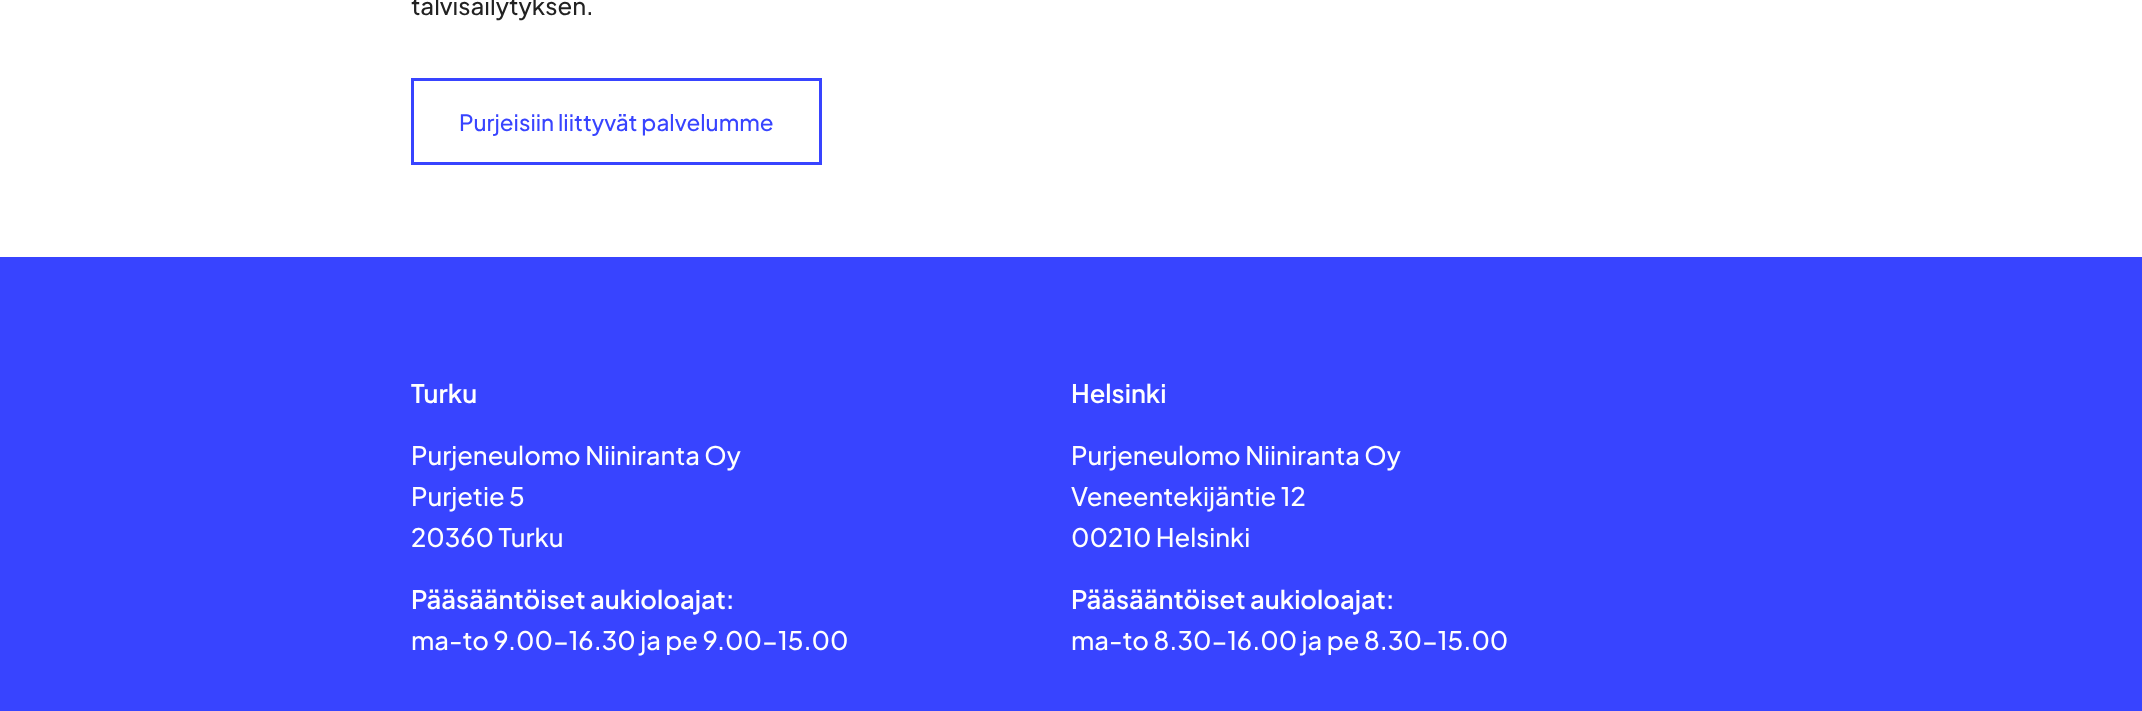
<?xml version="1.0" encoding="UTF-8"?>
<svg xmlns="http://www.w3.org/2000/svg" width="2142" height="711">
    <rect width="100%" height="100%" fill="#FFFFFF"/>
    <text x="411" y="15" font-family="Plus Jakarta Sans" font-size="24" font-weight="500" fill="#222222">talvisäilytyksen.</text>
    <rect x="412.5" y="79.5" width="408" height="84" fill="none" stroke="#3844FF" stroke-width="3"/>
    <text x="459" y="131" font-family="Plus Jakarta Sans" font-size="22.5" font-weight="500" fill="#3844FF">Purjeisiin liittyvät palvelumme</text>
    <rect x="0" y="257" width="2142" height="454" fill="#3844FF"/>
    <text x="411" y="403" font-family="Plus Jakarta Sans" font-size="25.5" font-weight="600" fill="#FFFFFF">Turku</text>
    <text font-family="Plus Jakarta Sans" font-size="25.5" font-weight="500" fill="#FFFFFF">
        <tspan x="411" y="465">Purjeneulomo Niiniranta Oy</tspan>
        <tspan x="411" y="506">Purjetie 5</tspan>
        <tspan x="411" y="547">20360 Turku</tspan>
    </text>
    <text x="411" y="609" font-family="Plus Jakarta Sans" font-size="25.5" font-weight="600" fill="#FFFFFF">Pääsääntöiset aukioloajat:</text>
    <text x="411" y="650" font-family="Plus Jakarta Sans" font-size="25.5" font-weight="500" fill="#FFFFFF">ma-to 9.00-16.30 ja pe 9.00-15.00</text>
    <text x="1071" y="403" font-family="Plus Jakarta Sans" font-size="25.5" font-weight="600" fill="#FFFFFF">Helsinki</text>
    <text font-family="Plus Jakarta Sans" font-size="25.5" font-weight="500" fill="#FFFFFF">
        <tspan x="1071" y="465">Purjeneulomo Niiniranta Oy</tspan>
        <tspan x="1071" y="506">Veneentekijäntie 12</tspan>
        <tspan x="1071" y="547">00210 Helsinki</tspan>
    </text>
    <text x="1071" y="609" font-family="Plus Jakarta Sans" font-size="25.5" font-weight="600" fill="#FFFFFF">Pääsääntöiset aukioloajat:</text>
    <text x="1071" y="650" font-family="Plus Jakarta Sans" font-size="25.5" font-weight="500" fill="#FFFFFF">ma-to 8.30-16.00 ja pe 8.30-15.00</text>
</svg>
